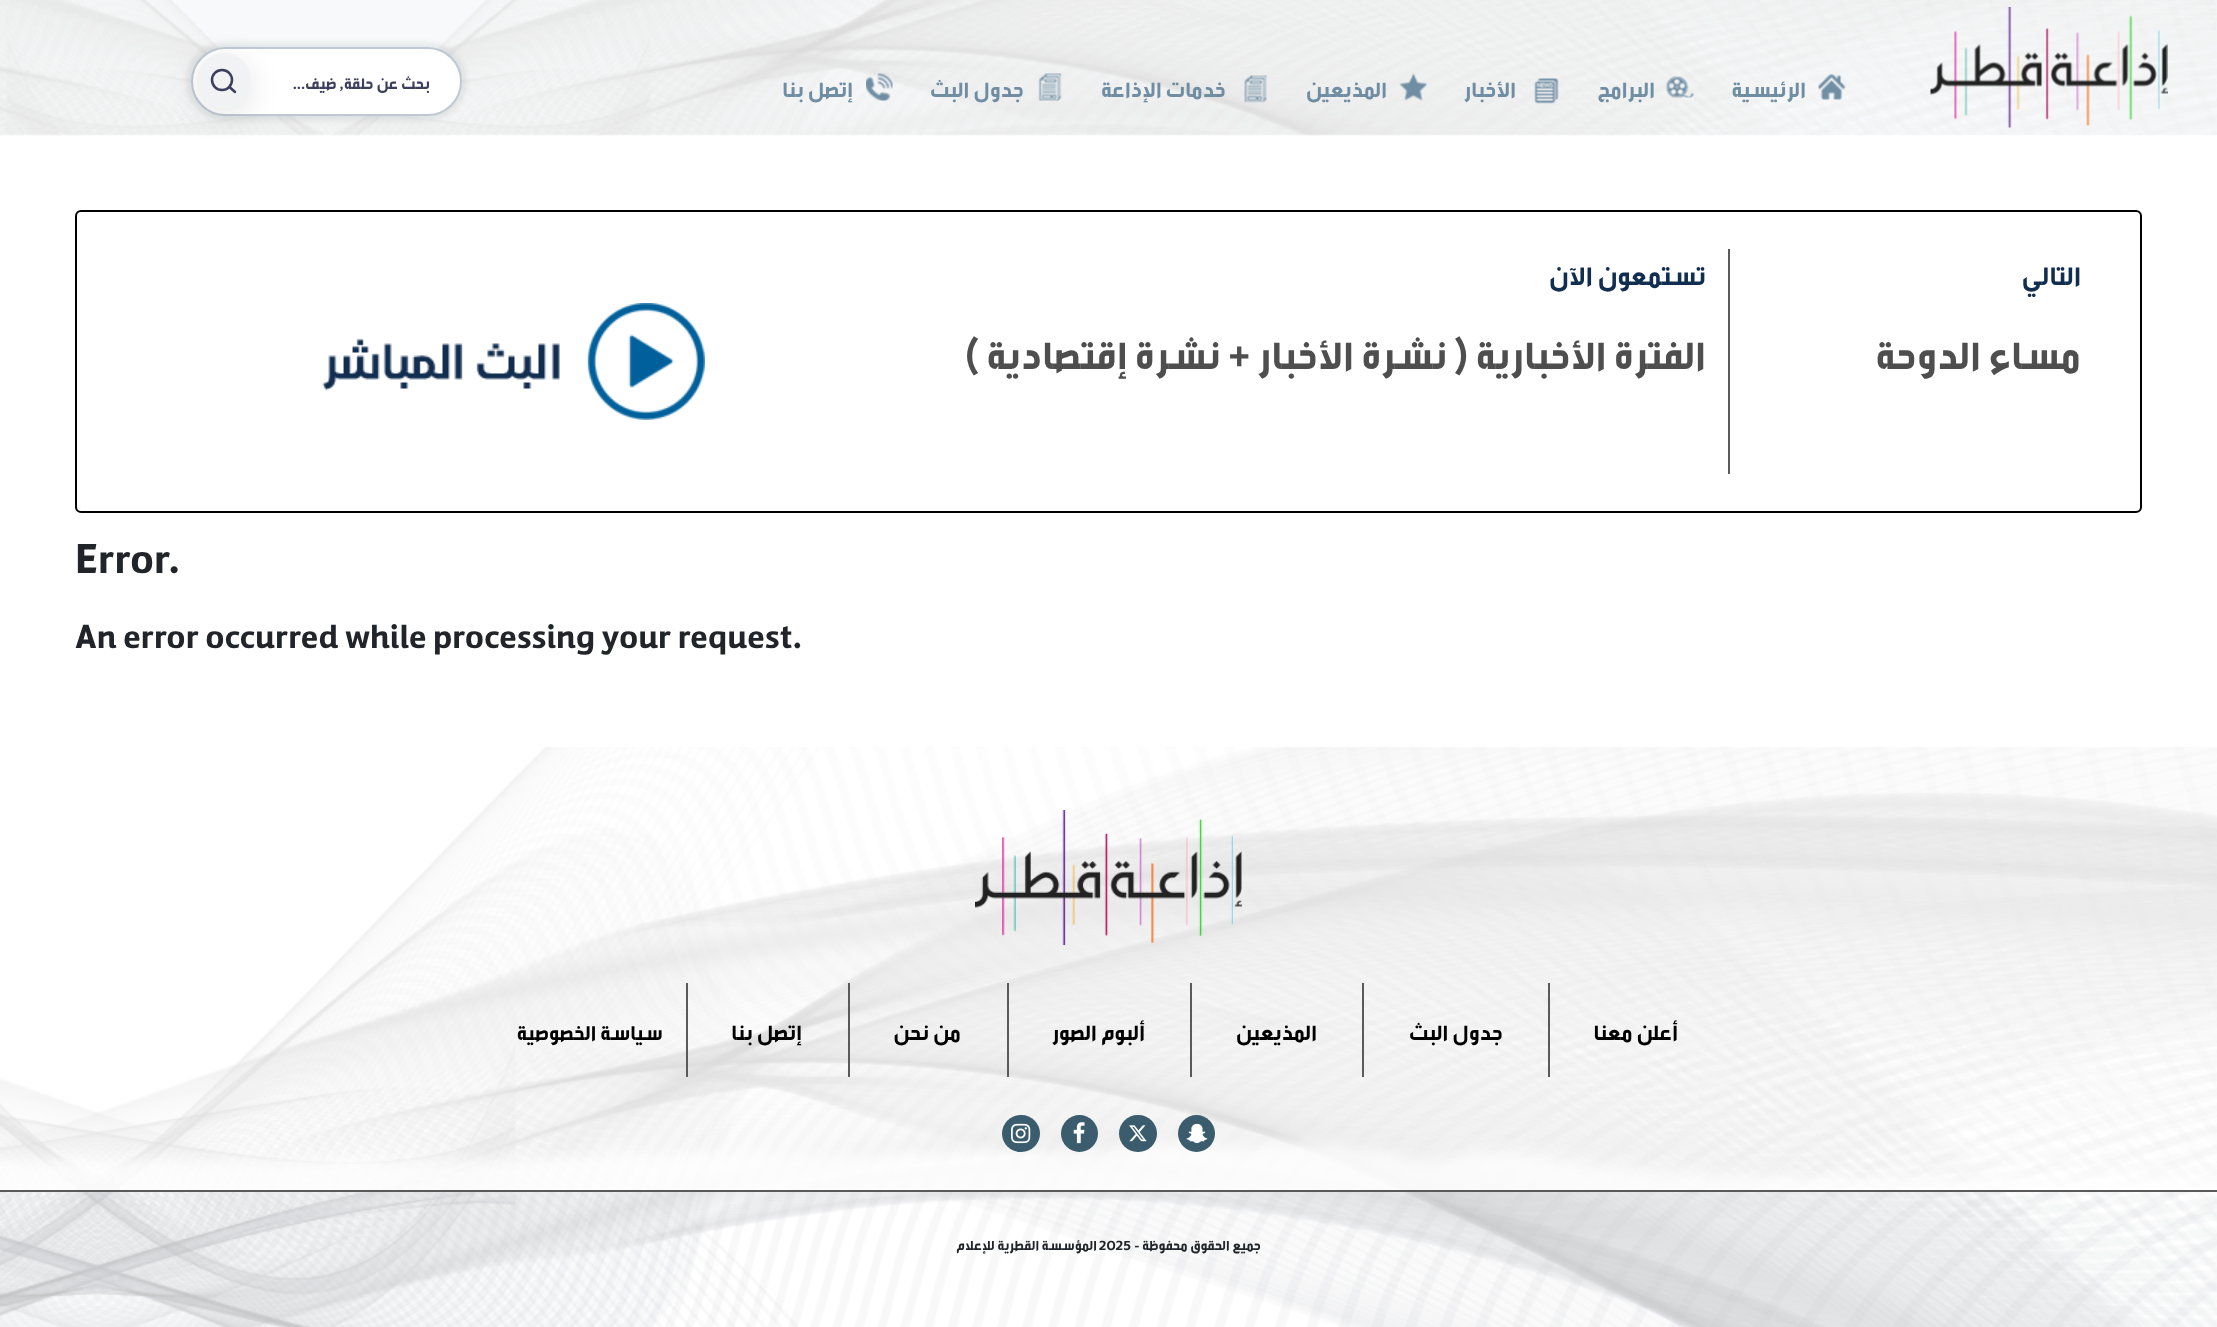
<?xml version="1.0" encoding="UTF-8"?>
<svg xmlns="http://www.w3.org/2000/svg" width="2217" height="1327">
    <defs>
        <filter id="blur1" x="-50%" y="-200%" width="200%" height="500%"><feGaussianBlur stdDeviation="3"/></filter>
        <filter id="blur2" x="-50%" y="-200%" width="200%" height="500%"><feGaussianBlur stdDeviation="15"/></filter>
    </defs>
    <rect width="100%" height="100%" fill="#FFFFFF"/>
    <rect x="0" y="0" width="2217" height="135" fill="#F8F9FA"/>
    <image x="0" y="0" width="2217" height="136" href="img_01.png"/>
    <image x="1930" y="7" width="238" height="121" href="img_02.png"/>
    <image x="1818" y="74" width="28" height="26" href="img_03.png"/>
    <text x="1806" y="97" font-family="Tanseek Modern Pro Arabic" font-size="30.5" font-weight="700" direction="rtl" fill="#6F8EA3">الرئيسية</text>
    <image x="1666" y="76" width="28" height="22" href="img_04.png"/>
    <text x="1655" y="97" font-family="Tanseek Modern Pro Arabic" font-size="30.5" font-weight="700" direction="rtl" fill="#6F8EA3">البرامج</text>
    <image x="1534" y="78" width="25" height="26" href="img_05.png"/>
    <text x="1516" y="97" font-family="Tanseek Modern Pro Arabic" font-size="30.5" font-weight="700" direction="rtl" fill="#6F8EA3">الأخبار</text>
    <image x="1399" y="73" width="28" height="28" href="img_06.png"/>
    <text x="1387" y="97" font-family="Tanseek Modern Pro Arabic" font-size="30.5" font-weight="700" direction="rtl" fill="#6F8EA3">المذيعين</text>
    <image x="1244" y="75" width="23" height="28" href="img_07.png"/>
    <text x="1226" y="97" font-family="Tanseek Modern Pro Arabic" font-size="30.5" font-weight="700" direction="rtl" fill="#6F8EA3">خدمات الإذاعة</text>
    <image x="1038" y="73" width="24" height="28" href="img_08.png"/>
    <text x="1024" y="97" font-family="Tanseek Modern Pro Arabic" font-size="30.5" font-weight="700" direction="rtl" fill="#6F8EA3">جدول البث</text>
    <image x="866" y="73" width="27" height="28" href="img_09.png"/>
    <text x="853" y="97" font-family="Tanseek Modern Pro Arabic" font-size="30.5" font-weight="700" direction="rtl" fill="#6F8EA3">إتصل بنا</text>
    <rect x="188" y="44" width="277" height="75" rx="37.5" fill="#1F2D3D" fill-opacity="0.1" filter="url(#blur1)"/>
    <rect x="192" y="48" width="269" height="67" rx="33.5" fill="#FFFFFF" stroke="#BFC9D4" stroke-width="2"/>
    <text x="430" y="89" font-family="Tanseek Modern Pro Arabic" font-size="22.5" font-weight="700" direction="rtl" fill="#3B3F5C">بحث عن حلقة, ضيف...</text>
    <rect x="197" y="60" width="54" height="56" rx="27" fill="#000000" fill-opacity="0.1" filter="url(#blur2)"/>
    <rect x="197" y="53" width="54" height="55" rx="27" fill="#F1F2F3"/>
    <circle cx="222" cy="80" r="10" fill="none" stroke="#3B3F5C" stroke-width="2.5"/>
    <path d="M 235 92 L 229.5 87" fill="none" stroke="#3B3F5C" stroke-width="2.5" stroke-linecap="round" stroke-linejoin="round"/>
    <rect x="76" y="211" width="2065" height="301" rx="5" fill="none" stroke="#000000" stroke-width="2"/>
    <text x="2081" y="285" font-family="Tanseek Modern Pro Arabic" font-size="37.5" font-weight="700" direction="rtl" fill="#112D4F">التالي</text>
    <text x="2081" y="369" font-family="Tanseek Modern Pro Arabic" font-size="56.2" font-weight="700" direction="rtl" fill="#4E4E4E">مساء الدوحة</text>
    <rect x="1728" y="249" width="2" height="225" fill="#5A5A5A"/>
    <text x="1706" y="285" font-family="Tanseek Modern Pro Arabic" font-size="37.5" font-weight="700" direction="rtl" fill="#112D4F">تستمعون الآن</text>
    <text x="1706" y="369" font-family="Tanseek Modern Pro Arabic" font-size="56.2" font-weight="700" direction="rtl" fill="#4E4E4E">الفترة الأخبارية ( نشرة الأخبار + نشرة إقتصادية )</text>
    <image x="322" y="303" width="383" height="117" href="img_10.png"/>
    <text x="75" y="573" font-family="Tanseek Modern Pro Arabic" font-size="62" font-weight="700" fill="#212529">Error.</text>
    <text x="75" y="648" font-family="Tanseek Modern Pro Arabic" font-size="49.9" font-weight="700" fill="#212529">An error occurred while processing your request.</text>
    <image x="0" y="747" width="2217" height="580" href="img_11.png"/>
    <image x="975" y="810" width="267" height="135" href="img_12.png"/>
    <rect x="1548" y="983" width="2" height="94" fill="#5A5A5A"/>
    <text x="1678" y="1040" font-family="Tanseek Modern Pro Arabic" font-size="30.5" font-weight="700" direction="rtl" fill="#000000">أعلن معنا</text>
    <rect x="1362" y="983" width="2" height="94" fill="#5A5A5A"/>
    <text x="1503" y="1040" font-family="Tanseek Modern Pro Arabic" font-size="30.5" font-weight="700" direction="rtl" fill="#000000">جدول البث</text>
    <rect x="1190" y="983" width="2" height="94" fill="#5A5A5A"/>
    <text x="1317" y="1040" font-family="Tanseek Modern Pro Arabic" font-size="30.5" font-weight="700" direction="rtl" fill="#000000">المذيعين</text>
    <rect x="1007" y="983" width="2" height="94" fill="#5A5A5A"/>
    <text x="1145" y="1040" font-family="Tanseek Modern Pro Arabic" font-size="30.5" font-weight="700" direction="rtl" fill="#000000">ألبوم الصور</text>
    <rect x="848" y="983" width="2" height="94" fill="#5A5A5A"/>
    <text x="961" y="1040" font-family="Tanseek Modern Pro Arabic" font-size="30.5" font-weight="700" direction="rtl" fill="#000000">من نحن</text>
    <rect x="686" y="983" width="2" height="94" fill="#5A5A5A"/>
    <text x="802" y="1040" font-family="Tanseek Modern Pro Arabic" font-size="30.5" font-weight="700" direction="rtl" fill="#000000">إتصل بنا</text>
    <text x="663" y="1040" font-family="Tanseek Modern Pro Arabic" font-size="29.25" font-weight="700" direction="rtl" fill="#000000">سياسة الخصوصية</text>
    <circle cx="1196.5" cy="1133.5" r="18.5" fill="#3A5C6D"/>
    <image x="1186" y="1123" width="22" height="21" href="img_13.png"/>
    <rect x="1119" y="1115" width="38" height="37" rx="18.5" fill="#3A5C6D"/>
    <image x="1129" y="1125" width="18" height="17" href="img_14.png"/>
    <circle cx="1079.5" cy="1133.5" r="18.5" fill="#3A5C6D"/>
    <image x="1073" y="1122" width="12" height="22" href="img_15.png"/>
    <rect x="1002" y="1115" width="38" height="37" rx="18.5" fill="#3A5C6D"/>
    <image x="1011" y="1123" width="20" height="21" href="img_16.png"/>
    <rect x="0" y="1190" width="2217" height="2" fill="#5A5A5A"/>
    <text x="1261" y="1250" font-family="Tanseek Modern Pro Arabic" font-size="19.5" font-weight="700" direction="rtl" fill="#212529">جميع الحقوق محفوظة -</text>
    <text x="1099" y="1250" font-family="Tanseek Modern Pro Arabic" font-size="19.5" font-weight="700" fill="#212529">2025</text>
    <text x="1097" y="1250" font-family="Tanseek Modern Pro Arabic" font-size="19.5" font-weight="700" direction="rtl" fill="#212529">المؤسسة القطرية للإعلام</text>
</svg>
